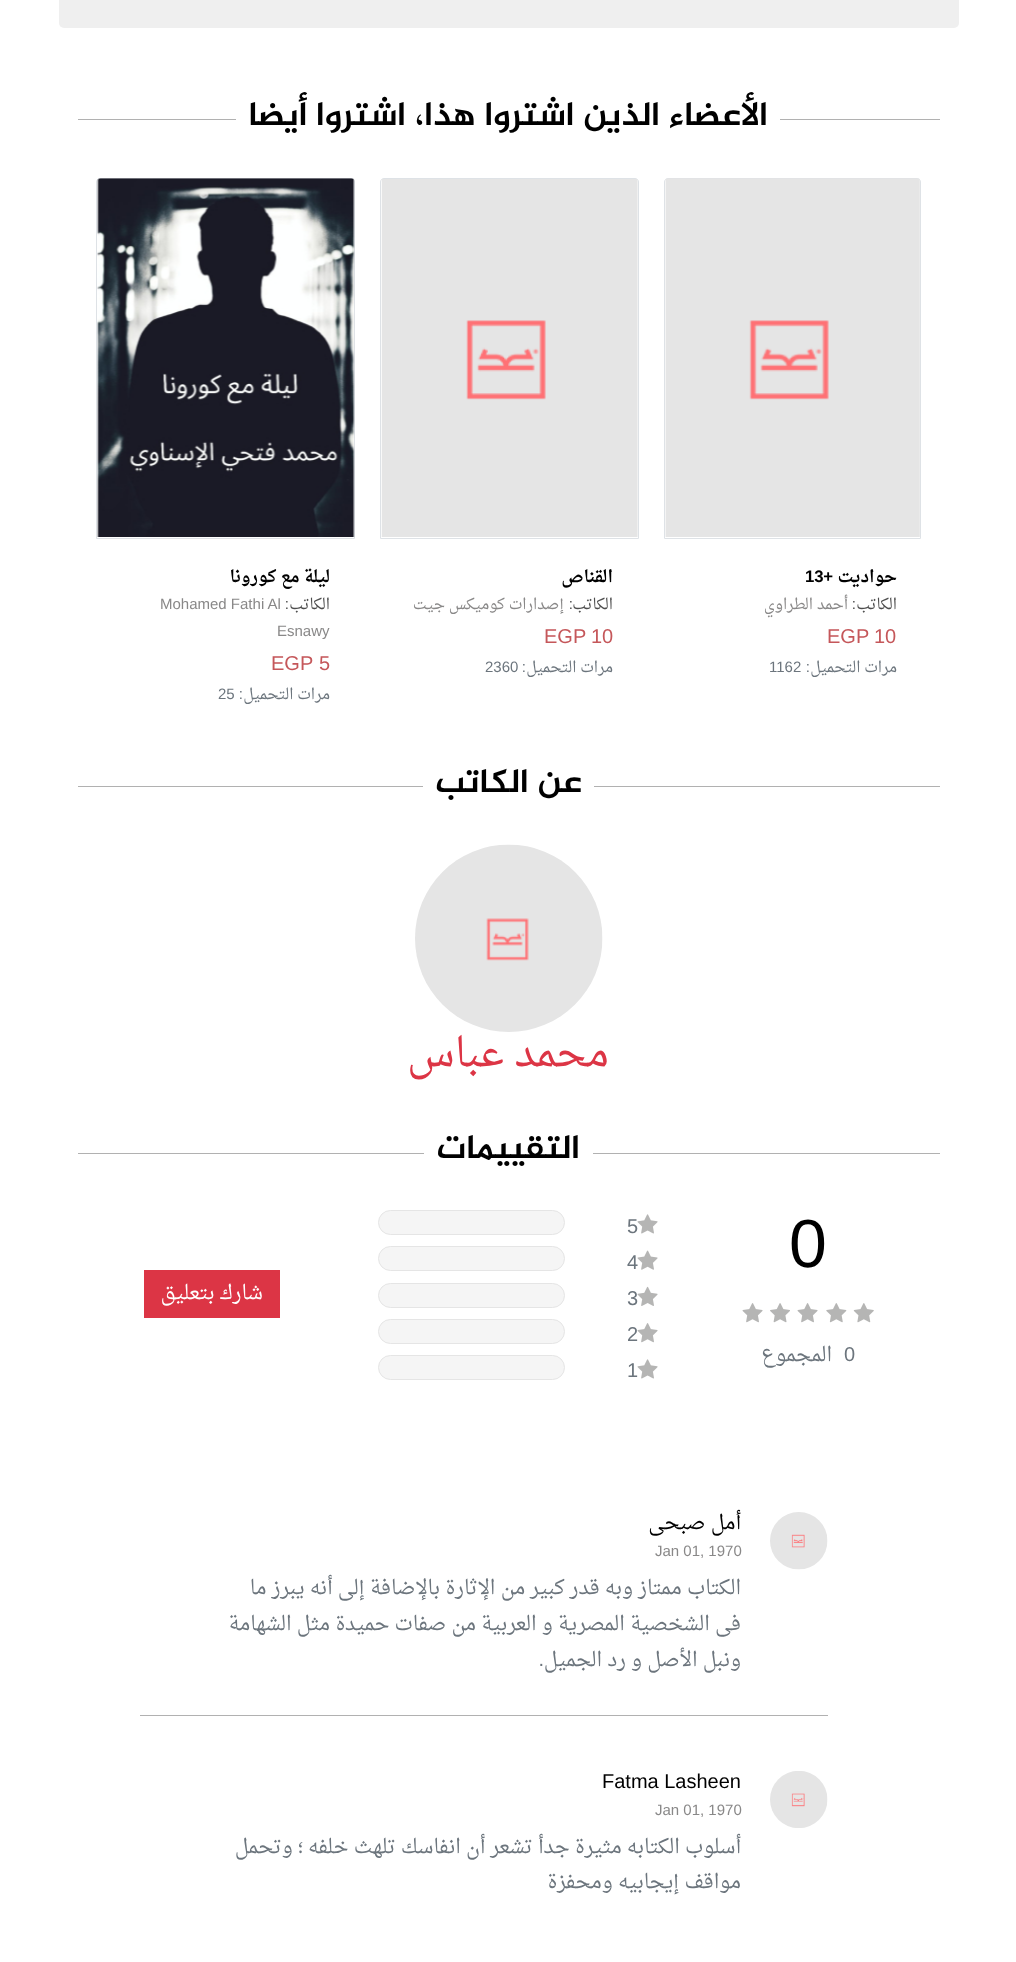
<?xml version="1.0" encoding="UTF-8"?>
<svg xmlns="http://www.w3.org/2000/svg" width="1016" height="1962">
    <rect width="100%" height="100%" fill="#FFFFFF"/>
    <rect x="59" y="-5" width="900" height="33" rx="5" fill="#EFEFEF"/>
    <rect x="780" y="119" width="160" height="1" fill="#B1B1B1"/>
    <text x="768" y="125" font-family="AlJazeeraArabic" font-size="34" font-weight="700" direction="rtl" fill="#000000">الأعضاء الذين اشتروا هذا، اشتروا أيضا</text>
    <rect x="78" y="119" width="158" height="1" fill="#B1B1B1"/>
    <path d="M 668 178.5 H 917 C 919 178.5 920.5 180 920.5 182 V 538.5 H 664.5 V 182 C 664.5 180 666 178.5 668 178.5 Z" fill="none" stroke="#DEE2E6"/>
    <image x="665" y="178" width="255" height="359" href="img_01.png"/>
    <text x="897" y="582" font-family="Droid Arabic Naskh" font-size="16.75" font-weight="700" direction="rtl" fill="#000000">حواديت</text>
    <text x="833" y="582" font-family="Liberation Sans" font-size="16.75" font-weight="700" direction="rtl" fill="#000000">+</text>
    <text x="805" y="582" font-family="Liberation Sans" font-size="16.75" font-weight="700" fill="#000000">13</text>
    <text x="897" y="609" font-family="Droid Arabic Naskh" font-size="15" direction="rtl" fill="#4D4D4D">الكاتب</text>
    <text x="856" y="609" font-family="Liberation Sans" font-size="15" direction="rtl" fill="#4D4D4D">:</text>
    <text x="848" y="609" font-family="Droid Arabic Naskh" font-size="15" direction="rtl" fill="#898888">أحمد الطراوي</text>
    <text x="874" y="643" font-family="Liberation Sans" font-size="20" fill="#C5575A">10</text>
    <text x="827" y="643" font-family="Liberation Sans" font-size="20" fill="#C5575A">EGP</text>
    <text x="897" y="672" font-family="Droid Arabic Naskh" font-size="15" direction="rtl" fill="#6C757D">مرات التحميل</text>
    <text x="810" y="672" font-family="Liberation Sans" font-size="15" direction="rtl" fill="#6C757D">:</text>
    <text x="769" y="672" font-family="Liberation Sans" font-size="15" fill="#6C757D">1162</text>
    <path d="M 384 178.5 H 635 C 637 178.5 638.5 180 638.5 182 V 538.5 H 380.5 V 182 C 380.5 180 382 178.5 384 178.5 Z" fill="none" stroke="#DEE2E6"/>
    <image x="381" y="179" width="257" height="358" href="img_02.png"/>
    <text x="613" y="582" font-family="Droid Arabic Naskh" font-size="16.75" font-weight="700" direction="rtl" fill="#000000">القناص</text>
    <text x="613" y="609" font-family="Droid Arabic Naskh" font-size="15" direction="rtl" fill="#4D4D4D">الكاتب</text>
    <text x="573" y="609" font-family="Liberation Sans" font-size="15" direction="rtl" fill="#4D4D4D">:</text>
    <text x="564" y="609" font-family="Droid Arabic Naskh" font-size="15" direction="rtl" fill="#898888">إصدارات كوميكس جيت</text>
    <text x="591" y="643" font-family="Liberation Sans" font-size="20" fill="#C5575A">10</text>
    <text x="544" y="643" font-family="Liberation Sans" font-size="20" fill="#C5575A">EGP</text>
    <text x="613" y="672" font-family="Droid Arabic Naskh" font-size="15" direction="rtl" fill="#6C757D">مرات التحميل</text>
    <text x="526" y="672" font-family="Liberation Sans" font-size="15" direction="rtl" fill="#6C757D">:</text>
    <text x="485" y="672" font-family="Liberation Sans" font-size="15" fill="#6C757D">2360</text>
    <path d="M 100 178.5 H 351 C 353 178.5 354.5 180 354.5 182 V 538.5 H 96.5 V 182 C 96.5 180 98 178.5 100 178.5 Z" fill="none" stroke="#DEE2E6"/>
    <image x="97" y="178" width="258" height="359" href="img_03.png"/>
    <text x="330" y="582" font-family="Droid Arabic Naskh" font-size="16.75" font-weight="700" direction="rtl" fill="#000000">ليلة مع كورونا</text>
    <text x="330" y="609" font-family="Droid Arabic Naskh" font-size="15" direction="rtl" fill="#4D4D4D">الكاتب</text>
    <text x="289" y="609" font-family="Liberation Sans" font-size="15" direction="rtl" fill="#4D4D4D">:</text>
    <text x="160" y="609" font-family="Liberation Sans" font-size="15" fill="#898888">Mohamed Fathi Al</text>
    <text x="277" y="636" font-family="Liberation Sans" font-size="15" fill="#898888">Esnawy</text>
    <text x="319" y="670" font-family="Liberation Sans" font-size="20" fill="#C5575A">5</text>
    <text x="271" y="670" font-family="Liberation Sans" font-size="20" fill="#C5575A">EGP</text>
    <text x="330" y="699" font-family="Droid Arabic Naskh" font-size="15" direction="rtl" fill="#6C757D">مرات التحميل</text>
    <text x="243" y="699" font-family="Liberation Sans" font-size="15" direction="rtl" fill="#6C757D">:</text>
    <text x="218" y="699" font-family="Liberation Sans" font-size="15" fill="#6C757D">25</text>
    <rect x="594" y="786" width="346" height="1" fill="#B1B1B1"/>
    <text x="582" y="792" font-family="AlJazeeraArabic" font-size="34" font-weight="700" direction="rtl" fill="#000000">عن الكاتب</text>
    <rect x="78" y="786" width="345" height="1" fill="#B1B1B1"/>
    <image x="415" y="844" width="188" height="188" href="img_04.png"/>
    <text x="609" y="1066" font-family="Droid Arabic Naskh" font-size="40" direction="rtl" fill="#DC3545">محمد عباس</text>
    <rect x="593" y="1153" width="347" height="1" fill="#B1B1B1"/>
    <text x="580" y="1158" font-family="AlJazeeraArabic" font-size="34" font-weight="700" direction="rtl" fill="#000000">التقييمات</text>
    <rect x="78" y="1153" width="346" height="1" fill="#B1B1B1"/>
    <text x="789" y="1267" font-family="Liberation Sans" font-size="68" fill="#000000">0</text>
    <image x="853" y="1303" width="21" height="20" href="img_05.png"/>
    <image x="826" y="1303" width="21" height="20" href="img_06.png"/>
    <image x="797" y="1303" width="21" height="20" href="img_07.png"/>
    <image x="770" y="1303" width="20" height="20" href="img_08.png"/>
    <image x="742" y="1303" width="21" height="20" href="img_07.png"/>
    <text x="844" y="1361" font-family="Liberation Sans" font-size="20" fill="#6C757D">0</text>
    <text x="832" y="1361" font-family="Droid Arabic Naskh" font-size="20" direction="rtl" fill="#6C757D">المجموع</text>
    <image x="637" y="1214" width="21" height="20" href="img_09.png"/>
    <text x="627" y="1233" font-family="Liberation Sans" font-size="20" fill="#6C757D">5</text>
    <rect x="378.5" y="1210.5" width="186" height="24" rx="12" fill="#F5F5F5" stroke="#E5E5E5"/>
    <image x="637" y="1250" width="21" height="20" href="img_10.png"/>
    <text x="627" y="1269" font-family="Liberation Sans" font-size="20" fill="#6C757D">4</text>
    <rect x="378.5" y="1246.5" width="186" height="24" rx="12" fill="#F5F5F5" stroke="#E5E5E5"/>
    <image x="637" y="1286" width="21" height="20" href="img_11.png"/>
    <text x="627" y="1305" font-family="Liberation Sans" font-size="20" fill="#6C757D">3</text>
    <rect x="378.5" y="1283.5" width="186" height="24" rx="12" fill="#F5F5F5" stroke="#E5E5E5"/>
    <image x="637" y="1323" width="21" height="20" href="img_07.png"/>
    <text x="627" y="1341" font-family="Liberation Sans" font-size="20" fill="#6C757D">2</text>
    <rect x="378.5" y="1319.5" width="186" height="24" rx="12" fill="#F5F5F5" stroke="#E5E5E5"/>
    <image x="637" y="1359" width="21" height="20" href="img_09.png"/>
    <text x="627" y="1377" font-family="Liberation Sans" font-size="20" fill="#6C757D">1</text>
    <rect x="378.5" y="1355.5" width="186" height="24" rx="12" fill="#F5F5F5" stroke="#E5E5E5"/>
    <rect x="144" y="1270" width="136" height="48" fill="#DC3545"/>
    <text x="263" y="1299" font-family="Droid Arabic Naskh" font-size="20" direction="rtl" fill="#FFFFFF">شارك بتعليق</text>
    <rect x="140" y="1715" width="688" height="1" fill="#B1B1B1"/>
    <image x="770" y="1512" width="58" height="58" href="img_12.png"/>
    <text x="741" y="1529" font-family="Droid Arabic Naskh" font-size="20" direction="rtl" fill="#000000">أمل صبحى</text>
    <text x="655" y="1556" font-family="Liberation Sans" font-size="15" fill="#898888">Jan 01, 1970</text>
    <text font-family="Droid Arabic Naskh" font-size="20" direction="rtl" fill="#6C757D">
        <tspan x="741" y="1594">الكتاب ممتاز وبه قدر كبير من الإثارة بالإضافة إلى أنه يبرز ما</tspan>
        <tspan x="741" y="1630">فى الشخصية المصرية و العربية من صفات حميدة مثل الشهامة</tspan>
        <tspan x="741" y="1666">ونبل الأصل و رد الجميل</tspan>
    </text>
    <text x="544" y="1666" font-family="Liberation Sans" font-size="20" direction="rtl" fill="#6C757D">.</text>
    <image x="770" y="1771" width="58" height="57" href="img_13.png"/>
    <text x="602" y="1788" font-family="Liberation Sans" font-size="20" fill="#000000">Fatma Lasheen</text>
    <text x="655" y="1815" font-family="Liberation Sans" font-size="15" fill="#898888">Jan 01, 1970</text>
    <text font-family="Droid Arabic Naskh" font-size="20" direction="rtl" fill="#6C757D">
        <tspan x="741" y="1853">أسلوب الكتابه مثيرة جدأ تشعر أن انفاسك تلهث خلفه ؛ وتحمل</tspan>
        <tspan x="741" y="1888">مواقف إيجابيه ومحفزة</tspan>
    </text>
</svg>
